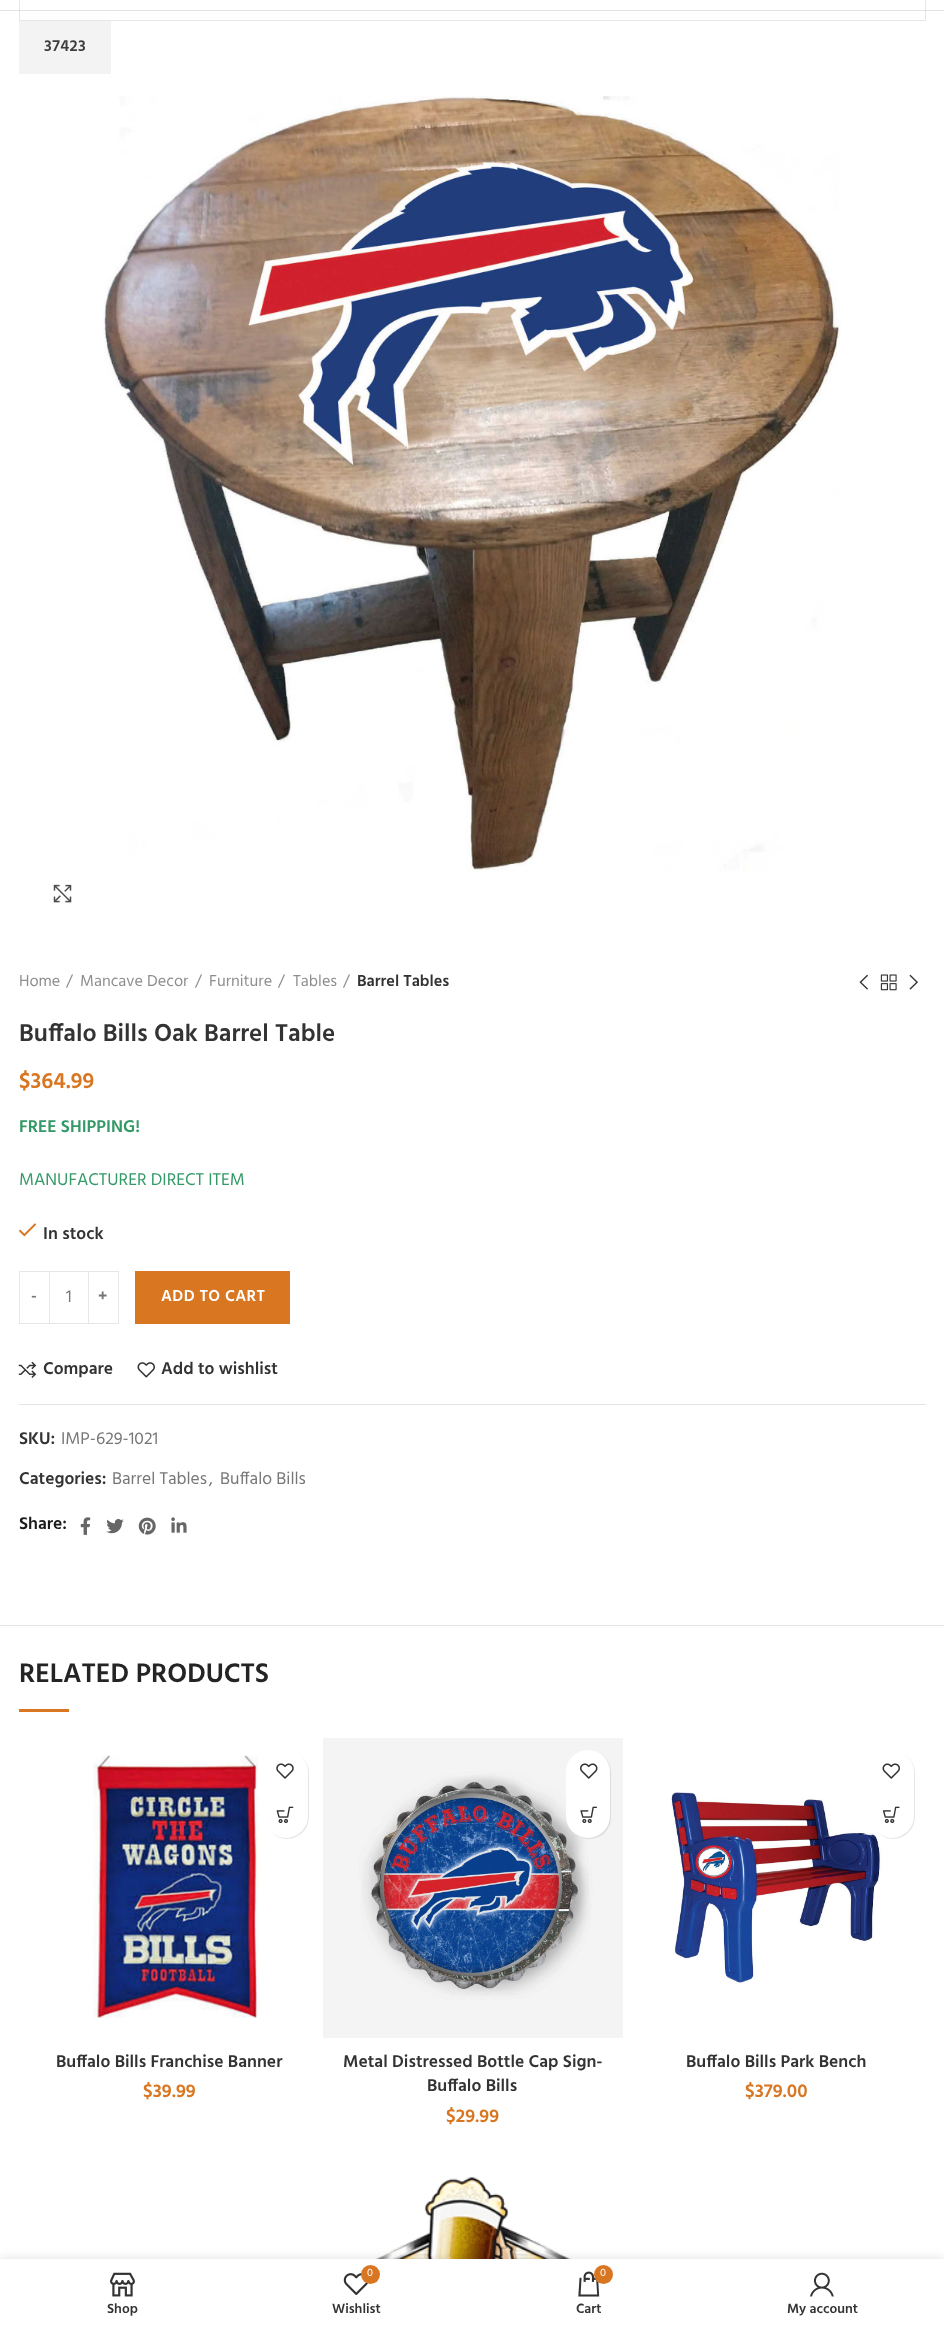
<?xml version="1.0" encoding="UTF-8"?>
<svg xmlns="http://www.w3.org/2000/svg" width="944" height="2327">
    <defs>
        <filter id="blur1" x="-50%" y="-200%" width="200%" height="500%"><feGaussianBlur stdDeviation="0.5"/></filter>
        <filter id="blur2" x="-50%" y="-200%" width="200%" height="500%"><feGaussianBlur stdDeviation="5.5"/></filter>
    </defs>
    <rect width="100%" height="100%" fill="#FFFFFF"/>
    <rect x="0" y="10" width="944" height="1" fill="#E3E3E3"/>
    <rect x="19.5" y="-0.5" width="906" height="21" fill="none" stroke="#818181" stroke-opacity="0.2"/>
    <rect x="19" y="21" width="92" height="53" fill="#F3F3F3"/>
    <text x="44" y="51" font-family="Hind" font-size="16.25" font-weight="600" letter-spacing="0.4" fill="#3E3E3E">37423</text>
    <image x="103" y="96" width="738" height="776" href="img_01.png"/>
    <image x="53" y="884" width="19" height="19" href="img_02.png"/>
    <text x="19" y="986" font-family="Hind" font-size="16.25" fill="#8E8E8E">Home</text>
    <text x="66" y="986" font-family="Hind" font-size="16.25" fill="#8E8E8E">/</text>
    <text x="80" y="986" font-family="Hind" font-size="16.25" fill="#8E8E8E">Mancave Decor</text>
    <text x="195" y="986" font-family="Hind" font-size="16.25" fill="#8E8E8E">/</text>
    <text x="209" y="986" font-family="Hind" font-size="16.25" fill="#8E8E8E">Furniture</text>
    <text x="278" y="986" font-family="Hind" font-size="16.25" fill="#8E8E8E">/</text>
    <text x="293" y="986" font-family="Hind" font-size="16.25" fill="#8E8E8E">Tables</text>
    <text x="343" y="986" font-family="Hind" font-size="16.25" fill="#8E8E8E">/</text>
    <text x="357" y="986" font-family="Hind" font-size="16.25" font-weight="600" fill="#333333">Barrel Tables</text>
    <image x="859" y="974" width="9" height="16" href="img_03.png"/>
    <image x="880" y="974" width="17" height="17" href="img_04.png"/>
    <image x="909" y="974" width="9" height="16" href="img_05.png"/>
    <text x="19" y="1041" font-family="Hind" font-size="25" font-weight="600" fill="#333333">Buffalo Bills Oak Barrel Table</text>
    <text x="19" y="1088" font-family="Hind" font-size="22.5" font-weight="600" fill="#D87621">$364.99</text>
    <text x="19" y="1132" font-family="Hind" font-size="17.5" font-weight="600" fill="#339966">FREE SHIPPING!</text>
    <text x="19" y="1185" font-family="Hind" font-size="17.5" fill="#339966">MANUFACTURER DIRECT ITEM</text>
    <image x="18" y="1223" width="19" height="14" href="img_06.png"/>
    <text x="43" y="1239" font-family="Hind" font-size="17.5" font-weight="600" fill="#333333">In stock</text>
    <rect x="19.5" y="1271.5" width="30" height="52" fill="none" stroke="#E6E6E6"/>
    <text x="31" y="1301" font-family="Hind" font-size="16.25" font-weight="600" letter-spacing="0.4" fill="#777777">-</text>
    <rect x="50" y="1271" width="38" height="1" fill="#E6E6E6"/>
    <rect x="50" y="1323" width="38" height="1" fill="#E6E6E6"/>
    <text x="66" y="1302" font-family="Hind" font-size="17.5" fill="#777777">1</text>
    <rect x="88.5" y="1271.5" width="30" height="52" fill="none" stroke="#E6E6E6"/>
    <text x="98" y="1301" font-family="Hind" font-size="16.25" font-weight="600" letter-spacing="0.4" fill="#777777">+</text>
    <rect x="135" y="1271" width="155" height="53" fill="#D87621"/>
    <text x="161" y="1301" font-family="Hind" font-size="16.25" font-weight="600" letter-spacing="0.4" fill="#FFFFFF">ADD TO CART</text>
    <path d="M 205 1290 C 207 1288 209.5 1287 212.5 1287 C 225 1287 227 1305.5 214.5 1308 C 211 1308.5 207.5 1307.5 205 1305" fill="none" stroke="#D87621" stroke-width="1.2"/>
    <image x="18" y="1361" width="19" height="17" href="img_07.png"/>
    <text x="43" y="1374" font-family="Hind" font-size="17.5" font-weight="600" fill="#333333">Compare</text>
    <image x="137" y="1362" width="18" height="16" href="img_08.png"/>
    <text x="161" y="1374" font-family="Hind" font-size="17.5" font-weight="600" fill="#333333">Add to wishlist</text>
    <rect x="19" y="1404" width="907" height="1" fill="#E4E4E4"/>
    <text x="19" y="1444" font-family="Hind" font-size="17.5" font-weight="600" fill="#333333">SKU:</text>
    <text x="61" y="1444" font-family="Hind" font-size="17.5" fill="#777777">IMP-629-1021</text>
    <text x="19" y="1484" font-family="Hind" font-size="17.5" font-weight="600" fill="#333333">Categories:</text>
    <text x="112" y="1484" font-family="Hind" font-size="17.5" fill="#777777">Barrel Tables</text>
    <text x="209" y="1484" font-family="Hind" font-size="17.5" fill="#777777">,</text>
    <text x="220" y="1484" font-family="Hind" font-size="17.5" fill="#777777">Buffalo Bills</text>
    <text x="19" y="1529" font-family="Hind" font-size="17.5" font-weight="600" fill="#1B1919">Share:</text>
    <image x="80" y="1517" width="11" height="18" href="img_09.png"/>
    <image x="106" y="1519" width="18" height="15" href="img_10.png"/>
    <image x="138" y="1517" width="18" height="18" href="img_11.png"/>
    <image x="171" y="1517" width="16" height="16" href="img_12.png"/>
    <rect x="0" y="1625" width="944" height="1" fill="#E4E4E4"/>
    <text x="19" y="1682" font-family="Hind" font-size="27.5" font-weight="600" fill="#242424">RELATED PRODUCTS</text>
    <rect x="19" y="1709" width="50" height="3" fill="#D87621"/>
    <image x="93" y="1755" width="166" height="263" href="img_13.png"/>
    <rect x="265" y="1751" width="44" height="88" rx="22" fill="#000000" fill-opacity="0.1" filter="url(#blur1)"/>
    <rect x="264" y="1750" width="44" height="88" rx="22" fill="#FFFFFF"/>
    <image x="276" y="1763" width="18" height="16" href="img_14.png"/>
    <image x="276" y="1806" width="18" height="18" href="img_15.png"/>
    <text x="56" y="2067" font-family="Hind" font-size="17.5" font-weight="600" fill="#333333">Buffalo Bills Franchise Banner</text>
    <text x="143" y="2097" font-family="Hind" font-size="19" font-weight="600" fill="#D87621">$39.99</text>
    <image x="323" y="1738" width="300" height="300" href="img_16.png"/>
    <rect x="568" y="1751" width="43" height="88" rx="21.5" fill="#000000" fill-opacity="0.1" filter="url(#blur1)"/>
    <rect x="566" y="1750" width="44" height="88" rx="22" fill="#FFFFFF"/>
    <image x="580" y="1763" width="18" height="16" href="img_17.png"/>
    <image x="580" y="1806" width="18" height="18" href="img_18.png"/>
    <text x="343" y="2067" font-family="Hind" font-size="17.5" font-weight="600" fill="#333333">Metal Distressed Bottle Cap Sign-</text>
    <text x="427" y="2091" font-family="Hind" font-size="17.5" font-weight="600" fill="#333333">Buffalo Bills</text>
    <text x="446" y="2122" font-family="Hind" font-size="19" font-weight="600" fill="#D87621">$29.99</text>
    <image x="671" y="1792" width="212" height="192" href="img_19.png"/>
    <rect x="871" y="1751" width="44" height="88" rx="22" fill="#000000" fill-opacity="0.1" filter="url(#blur1)"/>
    <rect x="870" y="1750" width="44" height="88" rx="22" fill="#FFFFFF"/>
    <image x="882" y="1763" width="18" height="16" href="img_20.png"/>
    <image x="882" y="1806" width="18" height="18" href="img_21.png"/>
    <text x="686" y="2067" font-family="Hind" font-size="17.5" font-weight="600" fill="#333333">Buffalo Bills Park Bench</text>
    <text x="745" y="2097" font-family="Hind" font-size="19" font-weight="600" fill="#D87621">$379.00</text>
    <image x="374" y="2177" width="198" height="82" href="img_22.png"/>
    <rect x="0" y="2259" width="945" height="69" fill="#000000" fill-opacity="0.12" filter="url(#blur2)"/>
    <rect x="0" y="2259" width="944" height="68" fill="#FFFFFF"/>
    <image x="110" y="2272" width="25" height="25" href="img_23.png"/>
    <text x="107" y="2313" font-family="Hind" font-size="13.75" font-weight="600" fill="#333333">Shop</text>
    <image x="343" y="2273" width="25" height="22" href="img_24.png"/>
    <circle cx="370.5" cy="2274.5" r="9.5" fill="#D87621"/>
    <text x="367" y="2276" font-family="Hind" font-size="11" fill="#FFFFFF">0</text>
    <text x="332" y="2313" font-family="Hind" font-size="13.75" font-weight="600" fill="#333333">Wishlist</text>
    <image x="578" y="2271" width="22" height="26" href="img_25.png"/>
    <circle cx="603.5" cy="2274.5" r="9.5" fill="#D87621"/>
    <text x="600" y="2276" font-family="Hind" font-size="11" fill="#FFFFFF">0</text>
    <text x="576" y="2313" font-family="Hind" font-size="13.75" font-weight="600" fill="#333333">Cart</text>
    <image x="810" y="2272" width="24" height="25" href="img_26.png"/>
    <text x="787" y="2313" font-family="Hind" font-size="13.75" font-weight="600" fill="#333333">My account</text>
</svg>
